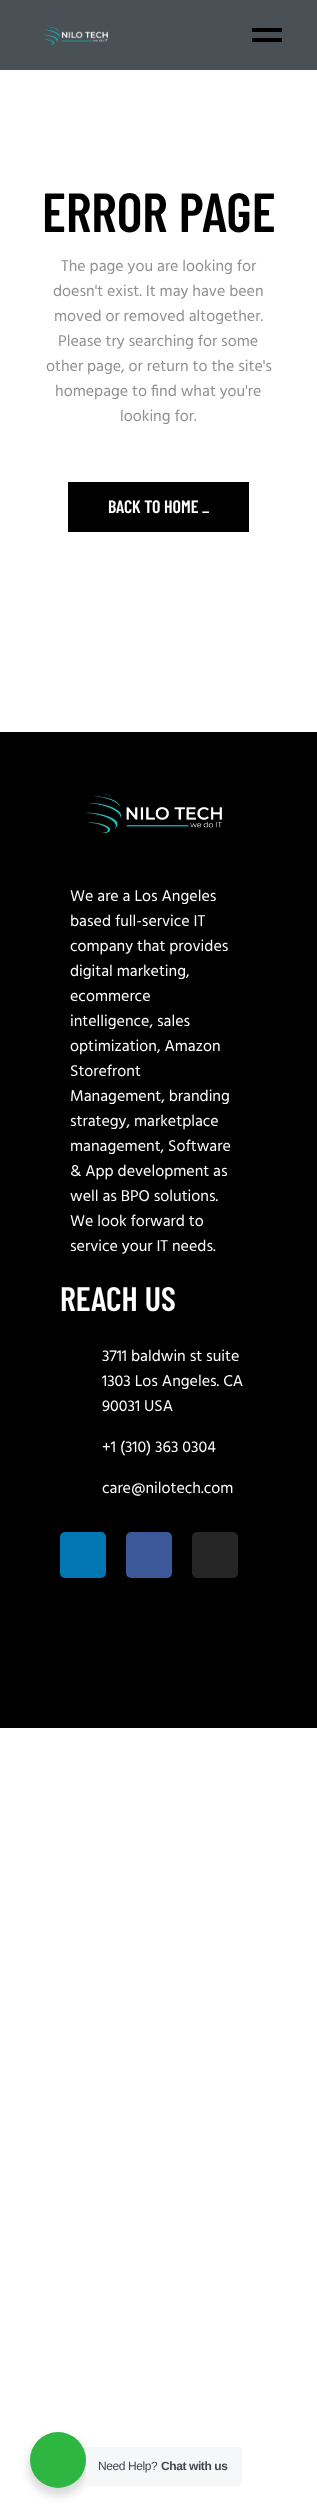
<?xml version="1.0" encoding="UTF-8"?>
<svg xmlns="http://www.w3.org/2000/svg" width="317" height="2518">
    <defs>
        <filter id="blur1" x="-50%" y="-200%" width="200%" height="500%"><feGaussianBlur stdDeviation="4"/></filter>
    </defs>
    <rect width="100%" height="100%" fill="#FFFFFF"/>
    <rect x="0" y="0" width="317" height="70" fill="#495157"/>
    <image x="42" y="25" width="66" height="20" href="img_01.png"/>
    <rect x="252" y="28" width="30" height="4" fill="#000000"/>
    <rect x="252" y="38" width="30" height="4" fill="#000000"/>
    <text x="42" y="232" font-family="Barlow Condensed" font-size="55" font-weight="600" fill="#000000">ERROR PAGE</text>
    <text x="61" y="271" font-family="Hind" font-size="16" fill="#909090">The page you are looking for</text>
    <text x="53" y="296" font-family="Hind" font-size="16" fill="#909090">doesn't exist. It may have been</text>
    <text x="54" y="321" font-family="Hind" font-size="16" fill="#909090">moved or removed altogether.</text>
    <text x="58" y="346" font-family="Hind" font-size="16" fill="#909090">Please try searching for some</text>
    <text x="46" y="371" font-family="Hind" font-size="16" fill="#909090">other page, or return to the site's</text>
    <text x="55" y="396" font-family="Hind" font-size="16" fill="#909090">homepage to find what you're</text>
    <text x="120" y="421" font-family="Hind" font-size="16" fill="#909090">looking for.</text>
    <rect x="68" y="482" width="181" height="50" fill="#000000"/>
    <text x="108" y="513" font-family="Barlow Condensed" font-size="18" font-weight="600" fill="#FFFFFF">BACK TO HOME _</text>
    <rect x="0" y="732" width="317" height="996" fill="#000000"/>
    <image x="85" y="793" width="137" height="41" href="img_02.png"/>
    <text font-family="Hind" font-size="16" fill="#FFFFFF">
        <tspan x="70" y="901">We are a Los Angeles</tspan>
        <tspan x="70" y="926">based full-service IT</tspan>
        <tspan x="70" y="951">company that provides</tspan>
        <tspan x="70" y="976">digital marketing,</tspan>
        <tspan x="70" y="1001">ecommerce</tspan>
        <tspan x="70" y="1026">intelligence, sales</tspan>
        <tspan x="70" y="1051">optimization, Amazon</tspan>
        <tspan x="70" y="1076">Storefront</tspan>
        <tspan x="70" y="1101">Management, branding</tspan>
        <tspan x="70" y="1126">strategy, marketplace</tspan>
        <tspan x="70" y="1151">management, Software</tspan>
        <tspan x="70" y="1176">&amp; App development as</tspan>
        <tspan x="70" y="1201">well as BPO solutions.</tspan>
        <tspan x="70" y="1226">We look forward to</tspan>
        <tspan x="70" y="1251">service your IT needs.</tspan>
    </text>
    <text x="60" y="1311" font-family="Barlow Condensed" font-size="34" font-weight="600" fill="#FFFFFF">REACH US</text>
    <text font-family="Hind" font-size="16" fill="#FFFFFF">
        <tspan x="102" y="1361">3711 baldwin st suite</tspan>
        <tspan x="102" y="1386">1303 Los Angeles. CA</tspan>
        <tspan x="102" y="1411">90031 USA</tspan>
    </text>
    <text x="102" y="1452" font-family="Hind" font-size="16" fill="#FFFFFF">+1 (310) 363 0304</text>
    <text x="102" y="1493" font-family="Hind" font-size="16" fill="#FFFFFF">care@nilotech.com</text>
    <rect x="60" y="1532" width="46" height="46" rx="5" fill="#0077B5"/>
    <rect x="126" y="1532" width="46" height="46" rx="5" fill="#3B5998"/>
    <rect x="192" y="1532" width="46" height="46" rx="5" fill="#262626"/>
    <rect x="28" y="2436" width="60" height="60" rx="30" fill="#000000" fill-opacity="0.14" filter="url(#blur1)"/>
    <circle cx="58" cy="2460" r="28" fill="#2DB742"/>
    <rect x="86" y="2447" width="156" height="39" rx="4" fill="#F5F7F9"/>
    <text x="98" y="2470" font-family="Liberation Sans" font-size="12" letter-spacing="-0.4" fill="#43474E">Need Help?</text>
    <text x="161" y="2470" font-family="Liberation Sans" font-size="12" font-weight="700" letter-spacing="-0.4" fill="#43474E">Chat with us</text>
</svg>
